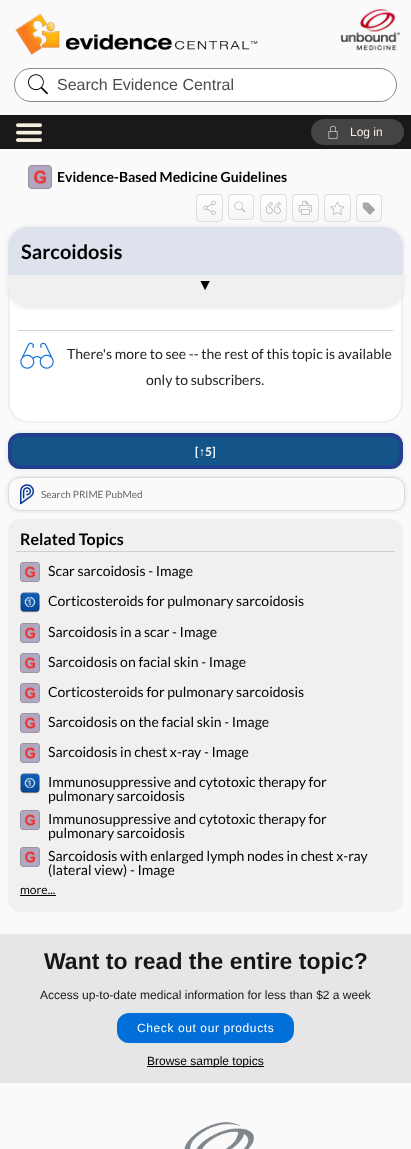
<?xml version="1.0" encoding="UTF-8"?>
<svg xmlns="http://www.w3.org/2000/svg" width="411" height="1149">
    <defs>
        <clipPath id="clip1"><rect x="196" y="194" width="27" height="28" rx="4"/></clipPath>
        <linearGradient id="g1" gradientUnits="userSpaceOnUse" x1="210" y1="195" x2="210" y2="221"><stop offset="0" stop-color="#FFFFFF"/><stop offset="1" stop-color="#F5F5F5"/></linearGradient>
        <clipPath id="clip2"><rect x="228" y="194" width="26" height="26" rx="4"/></clipPath>
        <linearGradient id="g2" gradientUnits="userSpaceOnUse" x1="241" y1="195" x2="241" y2="219"><stop offset="0" stop-color="#FFFFFF"/><stop offset="1" stop-color="#F5F5F5"/></linearGradient>
        <clipPath id="clip3"><rect x="260" y="194" width="27" height="28" rx="4"/></clipPath>
        <linearGradient id="g3" gradientUnits="userSpaceOnUse" x1="274" y1="195" x2="274" y2="221"><stop offset="0" stop-color="#FFFFFF"/><stop offset="1" stop-color="#F5F5F5"/></linearGradient>
        <clipPath id="clip4"><rect x="292" y="194" width="27" height="28" rx="4"/></clipPath>
        <linearGradient id="g4" gradientUnits="userSpaceOnUse" x1="306" y1="195" x2="306" y2="221"><stop offset="0" stop-color="#FFFFFF"/><stop offset="1" stop-color="#F5F5F5"/></linearGradient>
        <clipPath id="clip5"><rect x="324" y="194" width="27" height="28" rx="4"/></clipPath>
        <linearGradient id="g5" gradientUnits="userSpaceOnUse" x1="338" y1="195" x2="338" y2="221"><stop offset="0" stop-color="#FFFFFF"/><stop offset="1" stop-color="#F5F5F5"/></linearGradient>
        <clipPath id="clip6"><rect x="356" y="194" width="26" height="28" rx="4"/></clipPath>
        <linearGradient id="g6" gradientUnits="userSpaceOnUse" x1="369" y1="195" x2="369" y2="221"><stop offset="0" stop-color="#FFFFFF"/><stop offset="1" stop-color="#F5F5F5"/></linearGradient>
        <filter id="blur1" x="-50%" y="-200%" width="200%" height="500%"><feGaussianBlur stdDeviation="2.5"/></filter>
        <filter id="blur2" x="-50%" y="-200%" width="200%" height="500%"><feGaussianBlur stdDeviation="2"/></filter>
    </defs>
    <rect width="100%" height="100%" fill="#FAFAFA"/>
    <image x="15" y="13" width="243" height="42" href="img_01.png"/>
    <image x="340" y="8" width="61" height="43" href="img_02.png"/>
    <rect x="14.5" y="68.5" width="382" height="33" rx="16.5" fill="#FFFFFF" stroke="#878787"/>
    <image x="28" y="74" width="20" height="21" href="img_03.png"/>
    <text x="57" y="90" font-family="Liberation Sans" font-size="16" fill="#4D4D4D">Search Evidence Central</text>
    <rect x="0" y="115" width="411" height="34" fill="#191919"/>
    <image x="16" y="123" width="26" height="19" href="img_04.png"/>
    <rect x="311" y="119" width="93" height="26" rx="13" fill="#444444"/>
    <image x="328" y="125" width="10" height="14" href="img_05.png"/>
    <text x="350" y="136" font-family="Liberation Sans" font-size="12" fill="#F5EFE0">Log in</text>
    <image x="28" y="165" width="24" height="24" href="img_06.png"/>
    <text x="57" y="182" font-family="Lato" font-size="14" font-weight="700" fill="#000000">Evidence-Based Medicine Guidelines</text>
    <g clip-path="url(#clip1)">
        <rect x="196" y="195" width="27" height="26" fill="url(#g1)"/>
    </g>
    <rect x="196.5" y="194.5" width="26" height="27" rx="3.5" fill="none" stroke="#DBDDDF"/>
    <image x="203" y="200" width="13" height="15" href="img_07.png"/>
    <g clip-path="url(#clip2)">
        <rect x="228" y="195" width="26" height="24" fill="url(#g2)"/>
    </g>
    <rect x="228.5" y="194.5" width="25" height="25" rx="3.5" fill="none" stroke="#DBDDDF"/>
    <image x="234" y="201" width="12" height="12" href="img_08.png"/>
    <g clip-path="url(#clip3)">
        <rect x="260" y="195" width="27" height="26" fill="url(#g3)"/>
    </g>
    <rect x="260.5" y="194.5" width="26" height="27" rx="3.5" fill="none" stroke="#DBDDDF"/>
    <image x="266" y="202" width="15" height="12" href="img_09.png"/>
    <g clip-path="url(#clip4)">
        <rect x="292" y="195" width="27" height="26" fill="url(#g4)"/>
    </g>
    <rect x="292.5" y="194.5" width="26" height="27" rx="3.5" fill="none" stroke="#DBDDDF"/>
    <image x="298" y="200" width="14" height="15" href="img_10.png"/>
    <g clip-path="url(#clip5)">
        <rect x="324" y="195" width="27" height="26" fill="url(#g5)"/>
    </g>
    <rect x="324.5" y="194.5" width="26" height="27" rx="3.5" fill="none" stroke="#DBDDDF"/>
    <image x="330" y="201" width="15" height="14" href="img_11.png"/>
    <g clip-path="url(#clip6)">
        <rect x="356" y="195" width="26" height="26" fill="url(#g6)"/>
    </g>
    <rect x="356.5" y="194.5" width="25" height="27" rx="3.5" fill="none" stroke="#DBDDDF"/>
    <image x="362" y="202" width="13" height="13" href="img_12.png"/>
    <path d="M 8 278 H 403 V 403 C 403 414 394 423 383 423 H 28 C 17 423 8 414 8 403 Z" fill="#FFFFFF"/>
    <path d="M 8 278 H 403 V 403 C 403 414 394 423 383 423 H 28 C 17 423 8 414 8 403 Z M 10 278 H 401 V 403 C 401 413 393 421 383 421 H 28 C 18 421 10 413 10 403 Z" fill="#EFEFEF" fill-rule="evenodd"/>
    <rect x="18" y="330" width="375" height="1" fill="#D3D3D3"/>
    <image x="20" y="342" width="34" height="27" href="img_13.png"/>
    <text x="67" y="359" font-family="Lato" font-size="14" fill="#222222">There's more to see -- the rest of this topic is available</text>
    <text x="146" y="385" font-family="Lato" font-size="14" fill="#222222">only to subscribers.</text>
    <rect x="8" y="227" width="395" height="80" rx="20" fill="#E0E0E0" filter="url(#blur1)"/>
    <rect x="8" y="227" width="395" height="80" rx="20" fill="#F0F0F0"/>
    <path d="M 28 227 H 383 C 394 227 403 236 403 247 V 275 H 8 V 247 C 8 236 17 227 28 227 Z" fill="#DEE2ED"/>
    <text x="21" y="259" font-family="Lato" font-size="20" font-weight="700" fill="#000000">Sarcoidosis</text>
    <text x="213" y="281" transform="rotate(180 213 281)" font-family="Liberation Serif" font-size="16" fill="#000000">▲</text>
    <rect x="8" y="433" width="395" height="36" rx="12" fill="#DDDDDD" filter="url(#blur2)"/>
    <rect x="10" y="435" width="391" height="32" rx="10" fill="#135489" stroke="#22408D" stroke-width="4"/>
    <text x="195" y="456" font-family="Lato" font-size="12" font-weight="700" fill="#FFFFFF">[</text>
    <text x="199" y="456" font-family="Liberation Serif" font-size="12" font-weight="700" fill="#FFFFFF">↑</text>
    <text x="205" y="456" font-family="Lato" font-size="12" font-weight="700" fill="#FFFFFF">5]</text>
    <rect x="8" y="477" width="397" height="34" rx="12" fill="#DDDDDD" filter="url(#blur2)"/>
    <rect x="8.5" y="477.5" width="396" height="33" rx="11.5" fill="#FAFAFA" stroke="#D9DBE0"/>
    <image x="20" y="484" width="14" height="21" href="img_14.png"/>
    <text x="41" y="498" font-family="Lato" font-size="10" fill="#666666">Search PRIME PubMed</text>
    <rect x="8" y="519" width="395" height="393" rx="12" fill="#F0F0F0"/>
    <rect x="16" y="551" width="379" height="1" fill="#CCCFD3"/>
    <text x="20" y="545" font-family="Lato" font-size="16" font-weight="700" fill="#000000">Related Topics</text>
    <image x="20" y="562" width="20" height="20" href="img_15.png"/>
    <text x="48" y="576" font-family="Lato" font-size="14" fill="#000000">Scar sarcoidosis - Image</text>
    <image x="20" y="592" width="20" height="21" href="img_16.png"/>
    <text x="48" y="606" font-family="Lato" font-size="14" fill="#000000">Corticosteroids for pulmonary sarcoidosis</text>
    <image x="20" y="623" width="20" height="20" href="img_15.png"/>
    <text x="48" y="637" font-family="Lato" font-size="14" fill="#000000">Sarcoidosis in a scar - Image</text>
    <image x="20" y="653" width="20" height="20" href="img_15.png"/>
    <text x="48" y="667" font-family="Lato" font-size="14" fill="#000000">Sarcoidosis on facial skin - Image</text>
    <image x="20" y="683" width="20" height="20" href="img_15.png"/>
    <text x="48" y="697" font-family="Lato" font-size="14" fill="#000000">Corticosteroids for pulmonary sarcoidosis</text>
    <image x="20" y="713" width="20" height="20" href="img_15.png"/>
    <text x="48" y="727" font-family="Lato" font-size="14" fill="#000000">Sarcoidosis on the facial skin - Image</text>
    <image x="20" y="743" width="20" height="20" href="img_15.png"/>
    <text x="48" y="757" font-family="Lato" font-size="14" fill="#000000">Sarcoidosis in chest x-ray - Image</text>
    <image x="20" y="773" width="20" height="21" href="img_16.png"/>
    <text font-family="Lato" font-size="14" fill="#000000">
        <tspan x="48" y="787">Immunosuppressive and cytotoxic therapy for</tspan>
        <tspan x="48" y="801">pulmonary sarcoidosis</tspan>
    </text>
    <image x="20" y="810" width="20" height="20" href="img_15.png"/>
    <text font-family="Lato" font-size="14" fill="#000000">
        <tspan x="48" y="824">Immunosuppressive and cytotoxic therapy for</tspan>
        <tspan x="48" y="838">pulmonary sarcoidosis</tspan>
    </text>
    <image x="20" y="847" width="20" height="20" href="img_15.png"/>
    <text font-family="Lato" font-size="14" fill="#000000">
        <tspan x="48" y="861">Sarcoidosis with enlarged lymph nodes in chest x-ray</tspan>
        <tspan x="48" y="875">(lateral view) - Image</tspan>
    </text>
    <text x="20" y="894" font-family="Lato" font-size="12" fill="#000000">more...</text>
    <rect x="20" y="895" width="36" height="1" fill="#000000"/>
    <rect x="0" y="934" width="411" height="149" fill="#E6E6E6"/>
    <text x="44" y="969" font-family="Liberation Sans" font-size="23" font-weight="700" fill="#161616">Want to read the entire topic?</text>
    <text x="40" y="999" font-family="Liberation Sans" font-size="12" fill="#161616">Access up-to-date medical information for less than $2 a week</text>
    <rect x="117" y="1013" width="177" height="30" rx="12" fill="#006FD8"/>
    <text x="137" y="1032" font-family="Liberation Sans" font-size="12" letter-spacing="0.6" fill="#FFFFFF">Check out our products</text>
    <rect x="147" y="1066" width="117" height="1" fill="#000000"/>
    <text x="147" y="1065" font-family="Liberation Sans" font-size="12" fill="#000000">Browse sample topics</text>
    <image x="184" y="1122" width="70" height="27" href="img_17.png"/>
</svg>
